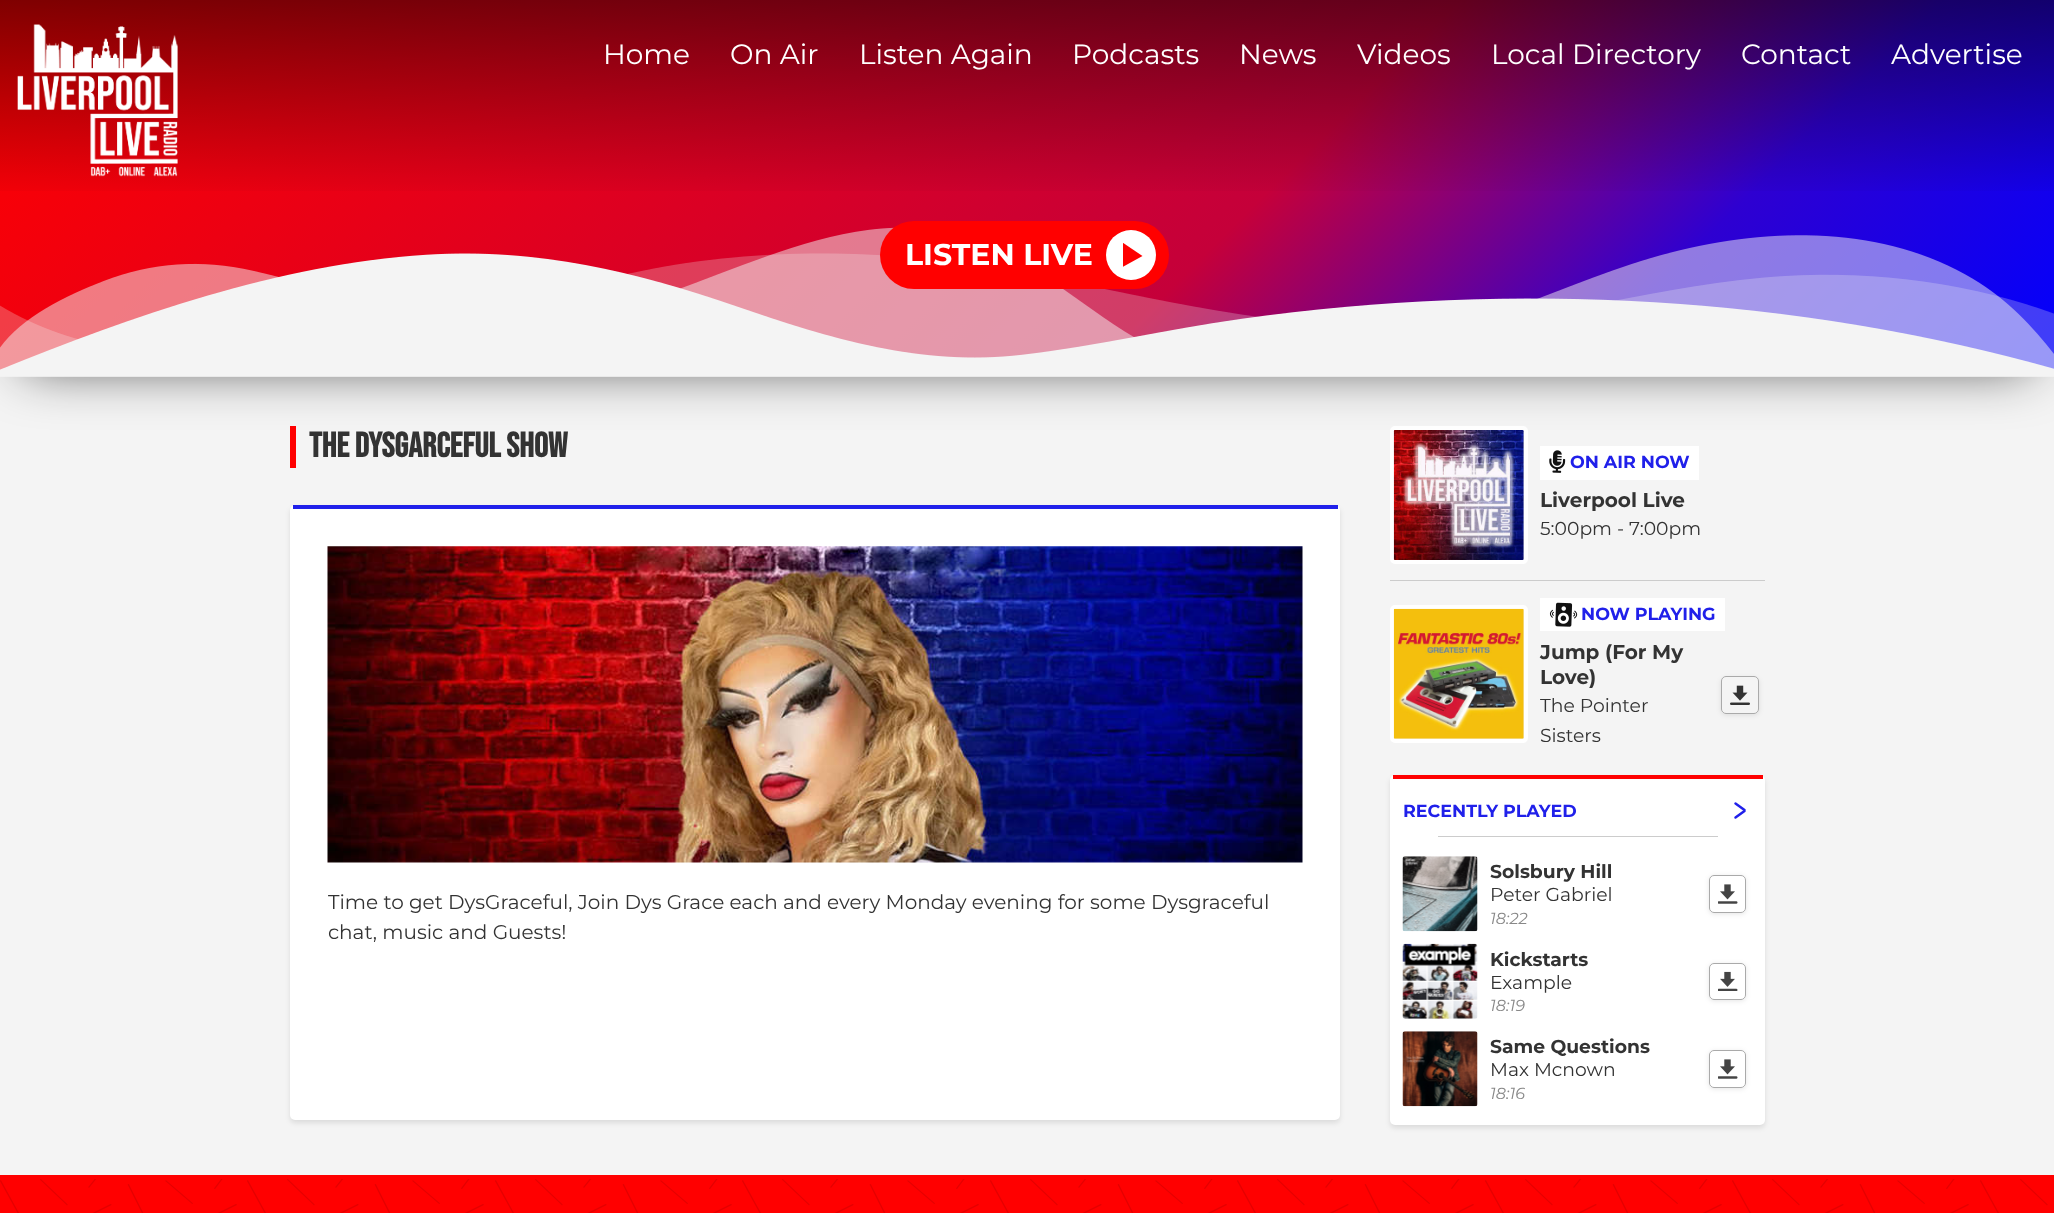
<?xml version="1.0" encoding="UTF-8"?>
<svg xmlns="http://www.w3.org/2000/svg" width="2054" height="1213">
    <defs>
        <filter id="blur1" x="-50%" y="-200%" width="200%" height="500%"><feGaussianBlur stdDeviation="27.5"/></filter>
        <linearGradient id="g1" gradientUnits="userSpaceOnUse" x1="420" y1="-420" x2="1635" y2="796"><stop offset="0" stop-color="#FF0000"/><stop offset="0.6" stop-color="#C5003A"/><stop offset="0.8" stop-color="#2E00D1"/><stop offset="1" stop-color="#0000FF"/></linearGradient>
        <linearGradient id="g2" gradientUnits="userSpaceOnUse" x1="1028" y1="0" x2="1028" y2="196"><stop offset="0" stop-color="#000000" stop-opacity="0.5"/><stop offset="0.98" stop-color="#000000" stop-opacity="0.02"/></linearGradient>
        <clipPath id="clip1"><rect x="1123" y="243" width="21" height="25"/></clipPath>
        <filter id="blur2" x="-50%" y="-200%" width="200%" height="500%"><feGaussianBlur stdDeviation="2.5"/></filter>
        <clipPath id="clip2"><path d="M 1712 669 H 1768 V 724 H 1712 Z M 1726 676 H 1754 C 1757 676 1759 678 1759 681 V 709 C 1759 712 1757 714 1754 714 H 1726 C 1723 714 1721 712 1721 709 V 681 C 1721 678 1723 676 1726 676 Z" clip-rule="evenodd"/></clipPath>
        <clipPath id="clip3"><path d="M 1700 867 H 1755 V 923 H 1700 Z M 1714 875 H 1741 C 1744 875 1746 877 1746 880 V 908 C 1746 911 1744 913 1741 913 H 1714 C 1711 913 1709 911 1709 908 V 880 C 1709 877 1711 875 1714 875 Z" clip-rule="evenodd"/></clipPath>
        <clipPath id="clip4"><path d="M 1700 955 H 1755 V 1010 H 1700 Z M 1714 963 H 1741 C 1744 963 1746 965 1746 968 V 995 C 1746 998 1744 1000 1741 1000 H 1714 C 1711 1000 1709 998 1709 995 V 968 C 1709 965 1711 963 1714 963 Z" clip-rule="evenodd"/></clipPath>
        <clipPath id="clip5"><path d="M 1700 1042 H 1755 V 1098 H 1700 Z M 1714 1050 H 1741 C 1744 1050 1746 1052 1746 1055 V 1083 C 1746 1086 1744 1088 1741 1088 H 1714 C 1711 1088 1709 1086 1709 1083 V 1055 C 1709 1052 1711 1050 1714 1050 Z" clip-rule="evenodd"/></clipPath>
    </defs>
    <rect width="100%" height="100%" fill="#F4F4F4"/>
    <rect x="290" y="426" width="6" height="42" fill="#FF0000"/>
    <rect x="1392" y="428" width="134" height="134" rx="3" fill="none" stroke="#FFFFFF" stroke-width="4"/>
    <image x="1393" y="430" width="131" height="130" href="img_04.png"/>
    <rect x="1540" y="446" width="159" height="34" fill="#FFFFFF"/>
    <rect x="24" y="36" width="2007" height="329" fill="#000000" fill-opacity="0.75" filter="url(#blur1)"/>
    <rect x="0" y="0" width="2054" height="370" fill="url(#g1)"/>
    <rect x="0" y="0" width="2054" height="191" fill="url(#g2)"/>
    <image x="17" y="24" width="161" height="153" href="img_01.png"/>
    <text x="603" y="64" font-family="Montserrat" font-size="28" fill="#FFFFFF">Home</text>
    <text x="730" y="64" font-family="Montserrat" font-size="28" fill="#FFFFFF">On Air</text>
    <text x="859" y="64" font-family="Montserrat" font-size="28" fill="#FFFFFF">Listen Again</text>
    <text x="1072" y="64" font-family="Montserrat" font-size="28" fill="#FFFFFF">Podcasts</text>
    <text x="1239" y="64" font-family="Montserrat" font-size="28" fill="#FFFFFF">News</text>
    <text x="1357" y="64" font-family="Montserrat" font-size="28" fill="#FFFFFF">Videos</text>
    <text x="1491" y="64" font-family="Montserrat" font-size="28" fill="#FFFFFF">Local Directory</text>
    <text x="1741" y="64" font-family="Montserrat" font-size="28" fill="#FFFFFF">Contact</text>
    <text x="1891" y="64" font-family="Montserrat" font-size="28" fill="#FFFFFF">Advertise</text>
    <image x="0" y="227" width="2054" height="150" href="img_02.png"/>
    <rect x="880" y="221" width="289" height="68" rx="34" fill="#FF0000"/>
    <text x="905" y="265" font-family="Montserrat" font-size="30" font-weight="700" fill="#FFFFFF">LISTEN LIVE</text>
    <circle cx="1131" cy="255" r="25" fill="#FFFFFF"/>
    <g clip-path="url(#clip1)">
        <path d="M 1122.5 242.5 L 1142.5 256 L 1122.5 267 Z" fill="#FF0000" fill-rule="evenodd"/>
    </g>
    <text x="309" y="457" font-family="Bebas Neue" font-size="35" font-weight="700" fill="#333333">THE DYSGARCEFUL SHOW</text>
    <rect x="290" y="508" width="1050" height="615" rx="5" fill="#000000" fill-opacity="0.1" filter="url(#blur2)"/>
    <rect x="290" y="505" width="1050" height="615" rx="5" fill="#FFFFFF"/>
    <rect x="293" y="505" width="1045" height="4" fill="#2020EA"/>
    <image x="327" y="546" width="976" height="317" href="img_03.png"/>
    <text font-family="Montserrat" font-size="20" fill="#333333">
        <tspan x="328" y="909">Time to get DysGraceful, Join Dys Grace each and every Monday evening for some Dysgraceful</tspan>
        <tspan x="328" y="939">chat, music and Guests!</tspan>
    </text>
    <rect x="1390" y="580" width="375" height="1" fill="#CCCCCC"/>
    <image x="1549" y="450" width="17" height="23" href="img_05.png"/>
    <text x="1570" y="468" font-family="Montserrat" font-size="17.5" font-weight="700" fill="#2020EA">ON AIR NOW</text>
    <text x="1540" y="507" font-family="Montserrat" font-size="20" font-weight="700" fill="#333333">Liverpool Live</text>
    <text x="1540" y="535" font-family="Montserrat" font-size="18.75" fill="#333333">5:00pm - 7:00pm</text>
    <rect x="1392" y="607" width="134" height="134" rx="3" fill="none" stroke="#FFFFFF" stroke-width="4"/>
    <image x="1393" y="608" width="131" height="131" href="img_06.png"/>
    <rect x="1540" y="598" width="185" height="33" fill="#FFFFFF"/>
    <image x="1549" y="602" width="29" height="25" href="img_07.png"/>
    <text x="1581" y="620" font-family="Montserrat" font-size="17.5" font-weight="700" fill="#2020EA">NOW PLAYING</text>
    <text font-family="Montserrat" font-size="20" font-weight="700" fill="#333333">
        <tspan x="1540" y="659">Jump (For My</tspan>
        <tspan x="1540" y="684">Love)</tspan>
    </text>
    <g clip-path="url(#clip2)">
        <rect x="1721" y="678" width="38" height="37" rx="5" fill="#000000" fill-opacity="0.1" filter="url(#blur2)"/>
    </g>
    <rect x="1721.5" y="676.5" width="37" height="37" rx="4.5" fill="none" stroke="#AAAAAA"/>
    <image x="1730" y="685" width="20" height="20" href="img_08.png"/>
    <text font-family="Montserrat" font-size="18.75" fill="#333333">
        <tspan x="1540" y="712">The Pointer</tspan>
        <tspan x="1540" y="742">Sisters</tspan>
    </text>
    <rect x="1390" y="778" width="375" height="350" rx="5" fill="#000000" fill-opacity="0.1" filter="url(#blur2)"/>
    <rect x="1390" y="775" width="375" height="350" rx="5" fill="#FFFFFF"/>
    <rect x="1393" y="775" width="370" height="4" fill="#FF0000"/>
    <text x="1403" y="817" font-family="Montserrat" font-size="17.5" font-weight="700" fill="#2020EA">RECENTLY PLAYED</text>
    <path d="M 1735.5 803.5 L 1744.5 810 M 1744.5 811 L 1735.5 817.5" fill="none" stroke="#2020EA" stroke-width="2.5" stroke-linecap="round"/>
    <rect x="1438" y="836" width="280" height="1" fill="#CCCCCC"/>
    <image x="1402" y="856" width="76" height="76" href="img_09.png"/>
    <text x="1490" y="878" font-family="Montserrat" font-size="18.75" font-weight="700" fill="#333333">Solsbury Hill</text>
    <text x="1490" y="901" font-family="Montserrat" font-size="18.75" fill="#333333">Peter Gabriel</text>
    <text x="1490" y="924" font-family="Montserrat" font-size="16" font-weight="100" font-style="italic" fill="#888888">18:22</text>
    <g clip-path="url(#clip3)">
        <rect x="1709" y="876" width="37" height="38" rx="5" fill="#000000" fill-opacity="0.1" filter="url(#blur2)"/>
    </g>
    <rect x="1709.5" y="875.5" width="36" height="37" rx="4.5" fill="none" stroke="#AAAAAA"/>
    <image x="1718" y="884" width="20" height="20" href="img_10.png"/>
    <image x="1402" y="943" width="76" height="76" href="img_11.png"/>
    <text x="1490" y="966" font-family="Montserrat" font-size="18.75" font-weight="700" fill="#333333">Kickstarts</text>
    <text x="1490" y="989" font-family="Montserrat" font-size="18.75" fill="#333333">Example</text>
    <text x="1490" y="1011" font-family="Montserrat" font-size="16" font-weight="100" font-style="italic" fill="#888888">18:19</text>
    <g clip-path="url(#clip4)">
        <rect x="1709" y="964" width="37" height="37" rx="5" fill="#000000" fill-opacity="0.1" filter="url(#blur2)"/>
    </g>
    <rect x="1709.5" y="963.5" width="36" height="36" rx="4.5" fill="none" stroke="#AAAAAA"/>
    <image x="1718" y="971" width="20" height="20" href="img_12.png"/>
    <image x="1402" y="1031" width="76" height="76" href="img_13.png"/>
    <text x="1490" y="1053" font-family="Montserrat" font-size="18.75" font-weight="700" fill="#333333">Same Questions</text>
    <text x="1490" y="1076" font-family="Montserrat" font-size="18.75" fill="#333333">Max Mcnown</text>
    <text x="1490" y="1099" font-family="Montserrat" font-size="16" font-weight="100" font-style="italic" fill="#888888">18:16</text>
    <g clip-path="url(#clip5)">
        <rect x="1709" y="1051" width="37" height="38" rx="5" fill="#000000" fill-opacity="0.1" filter="url(#blur2)"/>
    </g>
    <rect x="1709.5" y="1050.5" width="36" height="37" rx="4.5" fill="none" stroke="#AAAAAA"/>
    <image x="1718" y="1059" width="20" height="20" href="img_10.png"/>
    <rect x="0" y="1175" width="2054" height="38" fill="#FF0000"/>
    <image x="0" y="1179" width="2048" height="34" href="img_14.png"/>
</svg>
